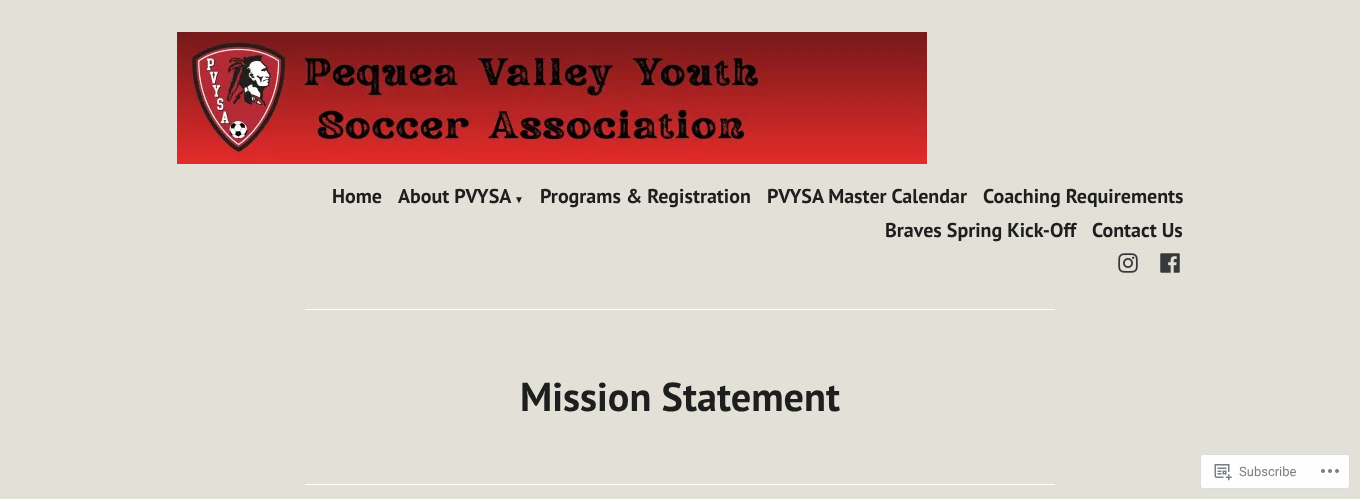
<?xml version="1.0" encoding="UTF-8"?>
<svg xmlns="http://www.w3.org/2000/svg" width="1360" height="499">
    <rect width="100%" height="100%" fill="#E3E0D8"/>
    <image x="177" y="32" width="750" height="132" href="img_01.png"/>
    <text x="332" y="203" font-family="PT Sans" font-size="20" font-weight="700" fill="#1D1E1E">Home</text>
    <text x="398" y="203" font-family="PT Sans" font-size="20" font-weight="700" fill="#1D1E1E">About PVYSA</text>
    <text x="514" y="203" font-family="Liberation Sans" font-size="10" font-weight="700" fill="#1D1E1E">▼</text>
    <text x="540" y="203" font-family="PT Sans" font-size="20" font-weight="700" fill="#1D1E1E">Programs &amp; Registration</text>
    <text x="767" y="203" font-family="PT Sans" font-size="20" font-weight="700" fill="#1D1E1E">PVYSA Master Calendar</text>
    <text x="983" y="203" font-family="PT Sans" font-size="20" font-weight="700" fill="#1D1E1E">Coaching Requirements</text>
    <text x="885" y="237" font-family="PT Sans" font-size="20" font-weight="700" fill="#1D1E1E">Braves Spring Kick-Off</text>
    <text x="1092" y="237" font-family="PT Sans" font-size="20" font-weight="700" fill="#1D1E1E">Contact Us</text>
    <image x="1118" y="253" width="20" height="20" href="img_02.png"/>
    <image x="1160" y="253" width="20" height="20" href="img_03.png"/>
    <rect x="305" y="309" width="750" height="1" fill="#FFFFFF"/>
    <text x="520" y="411" font-family="PT Sans" font-size="40.25" font-weight="700" fill="#1D1E1E">Mission Statement</text>
    <rect x="305" y="484" width="750" height="1" fill="#FFFFFF"/>
    <rect x="1200.5" y="454.5" width="149" height="34" rx="2.5" fill="#FEFEFE" stroke="#DCDCDE"/>
    <image x="1214" y="464" width="18" height="17" href="img_04.png"/>
    <text x="1239" y="476" font-family="Roboto" font-size="13" fill="#7A7E84">Subscribe</text>
    <image x="1321" y="469" width="18" height="4" href="img_05.png"/>
</svg>
